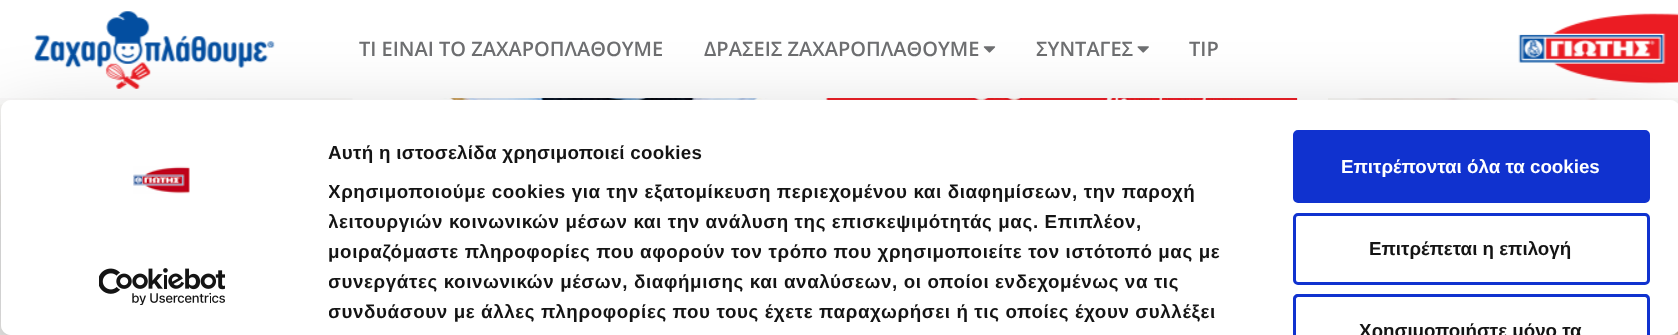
<?xml version="1.0" encoding="UTF-8"?>
<svg xmlns="http://www.w3.org/2000/svg" width="1678" height="335">
    <defs>
        <clipPath id="clip1"><path d="M 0 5 H 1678 V 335 H 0 Z M 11 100 H 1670 C 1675.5 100 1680 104.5 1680 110 V 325 C 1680 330.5 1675.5 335 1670 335 H 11 C 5.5 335 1 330.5 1 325 V 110 C 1 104.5 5.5 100 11 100 Z" clip-rule="evenodd"/></clipPath>
        <filter id="blur1" x="-50%" y="-200%" width="200%" height="500%"><feGaussianBlur stdDeviation="44"/></filter>
        <clipPath id="clip2"><rect x="329" y="138" width="927" height="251"/></clipPath>
    </defs>
    <rect width="100%" height="100%" fill="#FFFFFF"/>
    <image x="0" y="98" width="1678" height="237" href="img_01.png"/>
    <image x="1670" y="334" width="8" height="1" href="img_02.png"/>
    <image x="34" y="11" width="241" height="78" href="img_03.png"/>
    <text x="359" y="56" font-family="Open Sans" font-size="20" font-weight="600" fill="#6D6E70">ΤΙ ΕΙΝΑΙ ΤΟ ΖΑΧΑΡΟΠΛΑΘΟΥΜΕ</text>
    <text x="704" y="56" font-family="Open Sans" font-size="20" font-weight="600" fill="#6D6E70">ΔΡΑΣΕΙΣ ΖΑΧΑΡΟΠΛΑΘΟΥΜΕ</text>
    <image x="983" y="46" width="13" height="7" href="img_04.png"/>
    <text x="1036" y="56" font-family="Open Sans" font-size="20" font-weight="600" fill="#6D6E70">ΣΥΝΤΑΓΕΣ</text>
    <image x="1137" y="46" width="12" height="7" href="img_05.png"/>
    <text x="1189" y="56" font-family="Open Sans" font-size="20" font-weight="600" fill="#6D6E70">TIP</text>
    <image x="1518" y="13" width="160" height="71" href="img_06.png"/>
    <image x="0" y="98" width="1678" height="7" href="img_07.png"/>
    <rect x="1298" y="98" width="30" height="2" fill="#FFFFFF"/>
    <image x="352" y="98" width="946" height="2" href="img_08.png"/>
    <g clip-path="url(#clip1)">
        <rect x="1" y="138" width="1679" height="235" rx="10" fill="#000000" fill-opacity="0.3" filter="url(#blur1)"/>
    </g>
    <rect x="1" y="100" width="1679" height="235" rx="10" fill="#FFFFFF"/>
    <image x="133" y="166" width="57" height="28" href="img_09.png"/>
    <image x="99" y="268" width="126" height="37" href="img_10.png"/>
    <text x="328" y="159" font-family="Liberation Sans" font-size="18.75" font-weight="700" letter-spacing="0.3" fill="#141414">Αυτή η ιστοσελίδα χρησιμοποιεί cookies</text>
    <g clip-path="url(#clip2)">
        <text font-family="Liberation Sans" font-size="18.75" font-weight="700" letter-spacing="0.62" fill="#141414">
            <tspan x="328" y="198">Χρησιμοποιούμε cookies για την εξατομίκευση περιεχομένου και διαφημίσεων, την παροχή</tspan>
            <tspan x="328" y="228">λειτουργιών κοινωνικών μέσων και την ανάλυση της επισκεψιμότητάς μας. Επιπλέον,</tspan>
        </text>
    </g>
    <text x="328" y="258" font-family="Liberation Sans" font-size="18.75" font-weight="700" letter-spacing="0.62" fill="#141414">μοιραζόμαστε πληροφορίες που αφορούν τον τρόπο που χρησιμοποιείτε τον ιστότοπό μας με</text>
    <g clip-path="url(#clip2)">
        <text font-family="Liberation Sans" font-size="18.75" font-weight="700" letter-spacing="0.62" fill="#141414">
            <tspan x="328" y="288">συνεργάτες κοινωνικών μέσων, διαφήμισης και αναλύσεων, οι οποίοι ενδεχομένως να τις</tspan>
            <tspan x="328" y="318">συνδυάσουν με άλλες πληροφορίες που τους έχετε παραχωρήσει ή τις οποίες έχουν συλλέξει</tspan>
        </text>
    </g>
    <rect x="1294.5" y="131.5" width="354" height="70" rx="3.5" fill="#1032CF" stroke="#1032CF" stroke-width="3"/>
    <text x="1341" y="173" font-family="Liberation Sans" font-size="18.75" font-weight="700" fill="#FFFFFF">Επιτρέπονται όλα τα cookies</text>
    <rect x="1294.5" y="214.5" width="354" height="69" rx="3.5" fill="none" stroke="#1032CF" stroke-width="3"/>
    <text x="1369" y="255" font-family="Liberation Sans" font-size="18.75" font-weight="700" fill="#141414">Επιτρέπεται η επιλογή</text>
    <path d="M 1298 294 C 1295 294 1293 296 1293 299 V 335 H 1296 V 299 C 1296 298 1297 297 1298 297 H 1645 C 1646 297 1647 298 1647 299 V 335 H 1650 V 299 C 1650 296 1648 294 1645 294 Z" fill="#1032CF"/>
    <text x="1359" y="337" font-family="Liberation Sans" font-size="18.75" font-weight="700" fill="#141414">Χρησιμοποιήστε μόνο τα</text>
</svg>
